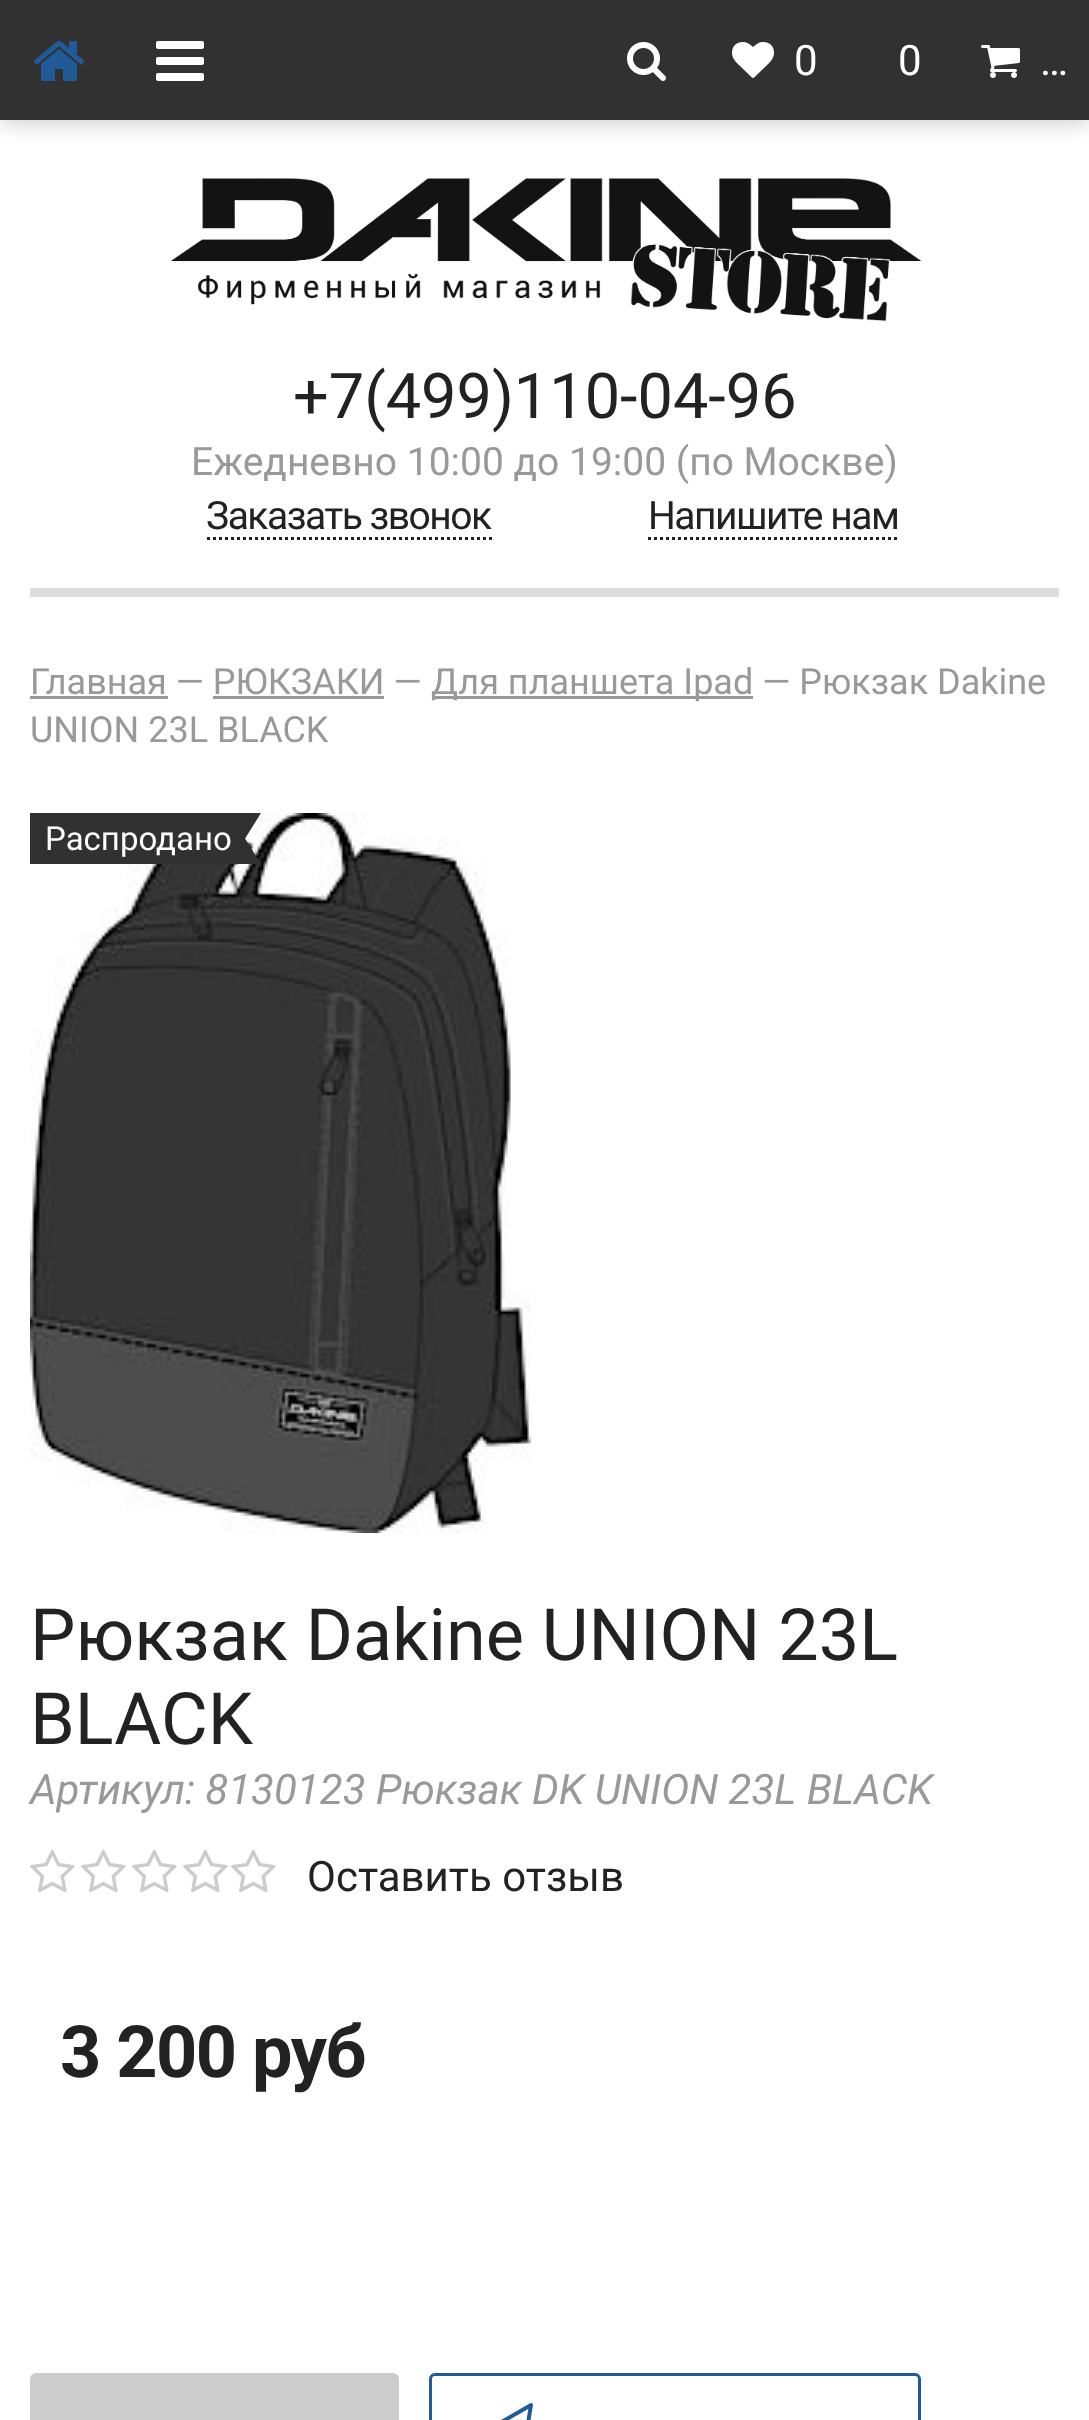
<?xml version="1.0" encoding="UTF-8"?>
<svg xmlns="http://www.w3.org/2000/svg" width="1089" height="2420">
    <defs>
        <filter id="blur1" x="-50%" y="-200%" width="200%" height="500%"><feGaussianBlur stdDeviation="12"/></filter>
    </defs>
    <rect width="100%" height="100%" fill="#FFFFFF"/>
    <rect x="0" y="0" width="1089" height="120" fill="#000000" fill-opacity="0.25" filter="url(#blur1)"/>
    <rect x="0" y="0" width="1089" height="120" fill="#313131"/>
    <image x="33" y="41" width="52" height="40" href="img_01.png"/>
    <image x="156" y="41" width="48" height="40" href="img_02.png"/>
    <image x="627" y="42" width="39" height="39" href="img_03.png"/>
    <image x="732" y="42" width="42" height="36" href="img_04.png"/>
    <text x="794" y="75" font-family="Roboto" font-size="42" fill="#FFFFFF">0</text>
    <text x="898" y="75" font-family="Roboto" font-size="42" fill="#FFFFFF">0</text>
    <image x="981" y="45" width="39" height="33" href="img_05.png"/>
    <text x="1040" y="75" font-family="Roboto" font-size="42" fill="#FFFFFF">…</text>
    <rect x="30" y="588" width="1029" height="9" fill="#DDDDDD"/>
    <image x="171" y="178" width="750" height="143" href="img_06.png"/>
    <text x="293" y="418" font-family="Roboto" font-size="63" fill="#222222">+7(499)110-04-96</text>
    <text x="191" y="475" font-family="Roboto" font-size="39" fill="#999999">Ежедневно 10:00 до 19:00 (по Москве)</text>
    <text x="206" y="529" font-family="Roboto" font-size="39" letter-spacing="-1.5" fill="#222222">Заказать звонок</text>
    <path d="M 207 538.5 H 492" fill="none" stroke="#222222" stroke-width="3" stroke-dasharray="3 3"/>
    <text x="648" y="529" font-family="Roboto" font-size="39" letter-spacing="-1.5" fill="#222222">Напишите нам</text>
    <path d="M 648 538.5 H 897" fill="none" stroke="#222222" stroke-width="3" stroke-dasharray="3 3"/>
    <text x="30" y="694" font-family="Roboto" font-size="36" fill="#999999">Главная — РЮКЗАКИ —</text>
    <rect x="30" y="696" width="138" height="3" fill="#999999"/>
    <rect x="432" y="696" width="321" height="3" fill="#999999"/>
    <text x="431" y="694" font-family="Roboto" font-size="36" fill="#999999">Для планшета Ipad — Рюкзак Dakine</text>
    <rect x="213" y="696" width="171" height="3" fill="#999999"/>
    <text x="30" y="742" font-family="Roboto" font-size="36" fill="#999999">UNION 23L BLACK</text>
    <image x="30" y="813" width="501" height="720" href="img_07.png"/>
    <rect x="30" y="813" width="201" height="51" fill="#313131"/>
    <path d="M 231 813 H 261 L 231 861 Z" fill="#313131"/>
    <text x="45" y="850" font-family="Roboto" font-size="33" fill="#FFFFFF">Распродано</text>
    <path d="M 231 864 V 816 L 261 864 Z" fill="#313131"/>
    <text font-family="Roboto" font-size="72" fill="#222222">
        <tspan x="30" y="1660">Рюкзак Dakine UNION 23L</tspan>
        <tspan x="30" y="1744">BLACK</tspan>
    </text>
    <text x="30" y="1804" font-family="Roboto" font-size="42" font-style="italic" fill="#999999">Артикул: 8130123 Рюкзак DK UNION 23L BLACK</text>
    <image x="30" y="1849" width="45" height="44" href="img_08.png"/>
    <image x="81" y="1849" width="45" height="44" href="img_08.png"/>
    <image x="132" y="1849" width="45" height="44" href="img_08.png"/>
    <image x="183" y="1849" width="45" height="44" href="img_08.png"/>
    <image x="231" y="1849" width="45" height="44" href="img_08.png"/>
    <text x="307" y="1891" font-family="Roboto" font-size="42" fill="#222222">Оставить отзыв</text>
    <text x="60" y="2077" font-family="Roboto" font-size="72" font-weight="700" letter-spacing="-1.5" fill="#222222">3 200 руб</text>
    <rect x="30" y="2373" width="369" height="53" rx="6" fill="#CCCCCC"/>
    <image x="501" y="2403" width="32" height="17" href="img_09.png"/>
    <rect x="430.5" y="2374.5" width="489" height="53" rx="4.5" fill="none" stroke="#215A98" stroke-width="3"/>
</svg>
